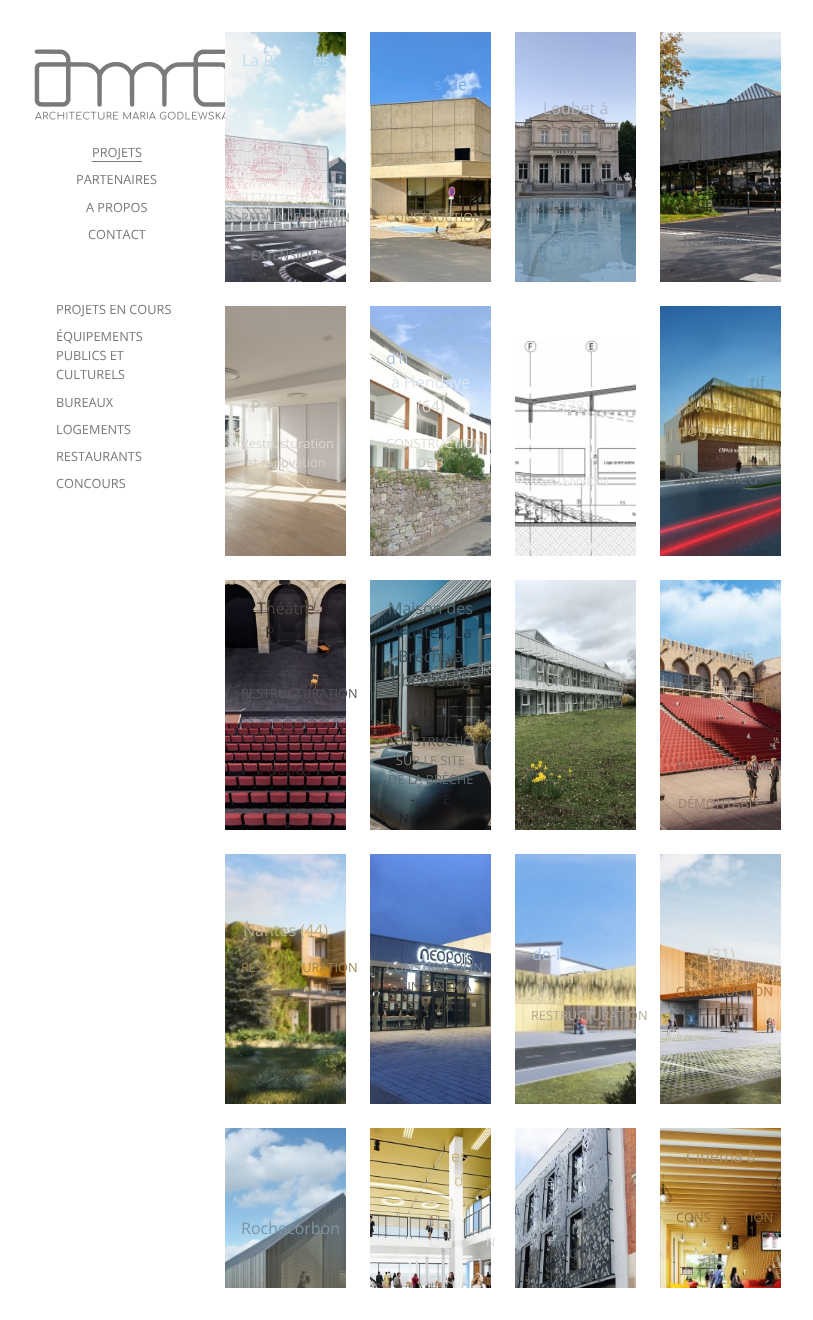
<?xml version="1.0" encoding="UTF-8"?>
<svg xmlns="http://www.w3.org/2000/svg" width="813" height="1320">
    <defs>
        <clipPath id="clip1"><rect x="225" y="32" width="556" height="1256"/></clipPath>
    </defs>
    <rect width="100%" height="100%" fill="#FFFFFF"/>
    <image x="34" y="49" width="191" height="71" href="img_01.png"/>
    <text x="92" y="157" font-family="Open Sans" font-size="12.75" fill="#7A7A7A">PROJETS</text>
    <rect x="92" y="161" width="50" height="1" fill="#7A7A7A"/>
    <text x="76" y="184" font-family="Open Sans" font-size="12.75" fill="#7A7A7A">PARTENAIRES</text>
    <text x="86" y="212" font-family="Open Sans" font-size="12.75" fill="#7A7A7A">A PROPOS</text>
    <text x="88" y="239" font-family="Open Sans" font-size="12.75" fill="#7A7A7A">CONTACT</text>
    <text x="56" y="314" font-family="Open Sans" font-size="12.75" fill="#7A7A7A">PROJETS EN COURS</text>
    <text font-family="Open Sans" font-size="12.75" fill="#7A7A7A">
        <tspan x="56" y="341">ÉQUIPEMENTS</tspan>
        <tspan x="56" y="360">PUBLICS ET</tspan>
        <tspan x="56" y="379">CULTURELS</tspan>
    </text>
    <text x="56" y="407" font-family="Open Sans" font-size="12.75" fill="#7A7A7A">BUREAUX</text>
    <text x="56" y="434" font-family="Open Sans" font-size="12.75" fill="#7A7A7A">LOGEMENTS</text>
    <text x="56" y="461" font-family="Open Sans" font-size="12.75" fill="#7A7A7A">RESTAURANTS</text>
    <text x="56" y="488" font-family="Open Sans" font-size="12.75" fill="#7A7A7A">CONCOURS</text>
    <image x="225" y="32" width="121" height="250" href="img_02.png"/>
    <text x="242" y="66" font-family="Open Sans" font-size="16" fill="#C2DDEC">La R</text>
    <text x="313" y="66" font-family="Open Sans" font-size="16" fill="#C2DDEC">es</text>
    <text x="241" y="222" font-family="Open Sans" font-size="12.75" fill="#949799">REQUALIFICATION</text>
    <text x="251" y="260" font-family="Open Sans" font-size="12.75" fill="#7F8087">EXTENSION</text>
    <image x="370" y="32" width="121" height="250" href="img_03.png"/>
    <text x="434" y="90" font-family="Open Sans" font-size="16" fill="#71AAED">s</text>
    <text x="454" y="90" font-family="Open Sans" font-size="16" fill="#71AAED">le</text>
    <text x="386" y="222" font-family="Open Sans" font-size="12.75" fill="#A9976F">CONSTRUCTION</text>
    <image x="515" y="32" width="121" height="250" href="img_04.png"/>
    <text x="543" y="114" font-family="Open Sans" font-size="16" fill="#B1B8C9">Loubet à</text>
    <image x="660" y="32" width="121" height="250" href="img_05.png"/>
    <text x="678" y="169" font-family="Open Sans" font-size="12.75" fill="#2A2924">ET EXTENSION</text>
    <text x="697" y="208" font-family="Open Sans" font-size="12.75" fill="#2A2F1C">CENTRE</text>
    <text x="683" y="246" font-family="Open Sans" font-size="12.75" fill="#6E6E72">NATIONAL A</text>
    <image x="225" y="306" width="121" height="250" href="img_06.png"/>
    <text x="251" y="412" font-family="Open Sans" font-size="16" fill="#C2BCB1">P</text>
    <text x="241" y="448" font-family="Open Sans" font-size="12.75" fill="#DAD6D1">Restructuration</text>
    <text x="246" y="467" font-family="Open Sans" font-size="12.75" fill="#D2CCC3">et rénovation</text>
    <text x="306" y="486" font-family="Open Sans" font-size="12.75" fill="#CEC0AA">e</text>
    <image x="370" y="306" width="121" height="250" href="img_07.png"/>
    <text x="386" y="364" font-family="Open Sans" font-size="16" fill="#B2C4DA">d’h</text>
    <text x="391" y="388" font-family="Open Sans" font-size="16" fill="#DFE7EF">à Hendaye</text>
    <text x="417" y="412" font-family="Open Sans" font-size="16" fill="#DAD6D1">(64)</text>
    <text x="386" y="448" font-family="Open Sans" font-size="12.75" fill="#DFDED3">CONSTRUCTION</text>
    <text x="417" y="467" font-family="Open Sans" font-size="12.75" fill="#BFC3B2">DE 3</text>
    <image x="515" y="340" width="121" height="216" href="img_08.png"/>
    <text x="562" y="412" font-family="Open Sans" font-size="16" fill="#ECECEC">(78)</text>
    <text x="541" y="486" font-family="Open Sans" font-size="12.75" fill="#E4E4E4">EXTENSION</text>
    <image x="660" y="306" width="121" height="250" href="img_09.png"/>
    <text x="750" y="388" font-family="Open Sans" font-size="16" fill="#6996AE">tif</text>
    <text x="685" y="412" font-family="Open Sans" font-size="16" fill="#A18C4C">avec salle</text>
    <text x="678" y="436" font-family="Open Sans" font-size="16" fill="#B19B65">polyvalente</text>
    <text x="716" y="460" font-family="Open Sans" font-size="16" fill="#5C463B">à</text>
    <text x="679" y="484" font-family="Open Sans" font-size="16" fill="#636D72">Mandelieu-</text>
    <image x="225" y="580" width="121" height="250" href="img_10.png"/>
    <text x="257" y="614" font-family="Open Sans" font-size="16" fill="#4B4442">Théâtre</text>
    <text x="265" y="638" font-family="Open Sans" font-size="16" fill="#2A2924">P</text>
    <text x="241" y="698" font-family="Open Sans" font-size="12.75" fill="#56535D">RESTRUCTURATION</text>
    <text x="260" y="775" font-family="Open Sans" font-size="12.75" fill="#41181F">PUBLICS</text>
    <image x="370" y="580" width="121" height="250" href="img_11.png"/>
    <text x="388" y="614" font-family="Open Sans" font-size="16" fill="#4F6976">Maison des</text>
    <text x="390" y="638" font-family="Open Sans" font-size="16" fill="#233F4F">Artistes, La</text>
    <text x="398" y="662" font-family="Open Sans" font-size="16" fill="#3E5762">Brèche à</text>
    <text x="391" y="686" font-family="Open Sans" font-size="16" fill="#4C5351">Cherbourg</text>
    <text x="386" y="746" font-family="Open Sans" font-size="12.75" fill="#555149">CONSTRUCTION</text>
    <text x="396" y="765" font-family="Open Sans" font-size="12.75" fill="#827C73">SUR LE SITE</text>
    <text x="388" y="784" font-family="Open Sans" font-size="12.75" fill="#5D696C">DE LA BRÈCHE</text>
    <text x="411" y="804" font-family="Open Sans" font-size="12.75" fill="#1F2A32">-</text>
    <text x="443" y="804" font-family="Open Sans" font-size="12.75" fill="#1F2A32">E</text>
    <text x="399" y="823" font-family="Open Sans" font-size="12.75" fill="#1E2022">N</text>
    <image x="515" y="580" width="121" height="250" href="img_12.png"/>
    <text x="535" y="686" font-family="Open Sans" font-size="16" fill="#7A7A7A">Porcheville</text>
    <image x="660" y="580" width="121" height="250" href="img_13.png"/>
    <text x="687" y="662" font-family="Open Sans" font-size="16" fill="#B0AAA0">du Palais</text>
    <text x="681" y="686" font-family="Open Sans" font-size="16" fill="#6E6259">des Papes</text>
    <g clip-path="url(#clip1)">
        <text x="676" y="770" font-family="Open Sans" font-size="12.75" fill="#985E55">RENOUVELLEMEN</text>
    </g>
    <text x="678" y="808" font-family="Open Sans" font-size="12.75" fill="#977F72">DÉMONTABLE</text>
    <image x="225" y="854" width="121" height="250" href="img_14.png"/>
    <text x="243" y="936" font-family="Open Sans" font-size="16" fill="#B6AD8C">Nantes (44)</text>
    <text x="241" y="972" font-family="Open Sans" font-size="12.75" fill="#9B864E">RESTRUCTURATION</text>
    <image x="370" y="854" width="121" height="250" href="img_15.png"/>
    <text x="386" y="972" font-family="Open Sans" font-size="12.75" fill="#7F8A96">CONSTRUCTION</text>
    <text x="390" y="991" font-family="Open Sans" font-size="12.75" fill="#6F6C66">D’UN CINEMA</text>
    <image x="515" y="854" width="121" height="250" href="img_16.png"/>
    <text x="532" y="960" font-family="Open Sans" font-size="16" fill="#A8C4E4">de-l</text>
    <text x="531" y="1020" font-family="Open Sans" font-size="12.75" fill="#B4A994">RESTRUCTURATION</text>
    <image x="660" y="854" width="121" height="250" href="img_17.png"/>
    <text x="707" y="960" font-family="Open Sans" font-size="16" fill="#D2CCC3">(31)</text>
    <text x="676" y="996" font-family="Open Sans" font-size="12.75" fill="#AE7845">CONSTRUCTION</text>
    <image x="225" y="1128" width="121" height="160" href="img_18.png"/>
    <text x="241" y="1234" font-family="Open Sans" font-size="16" fill="#7C95A4">Rochecorbon</text>
    <image x="370" y="1128" width="121" height="160" href="img_19.png"/>
    <text x="451" y="1162" font-family="Open Sans" font-size="16" fill="#C8B475">es</text>
    <text x="454" y="1186" font-family="Open Sans" font-size="16" fill="#D2C28B">d</text>
    <text x="447" y="1210" font-family="Open Sans" font-size="16" fill="#DFD6B2">1</text>
    <text x="429" y="1246" font-family="Open Sans" font-size="12.75" fill="#DCDEDD">L</text>
    <text x="486" y="1246" font-family="Open Sans" font-size="12.75" fill="#DCDEDD">N</text>
    <image x="515" y="1128" width="121" height="160" href="img_20.png"/>
    <text x="557" y="1162" font-family="Open Sans" font-size="16" fill="#A1AAB6">i</text>
    <text x="539" y="1186" font-family="Open Sans" font-size="16" fill="#8B95A0">répétition</text>
    <text x="546" y="1234" font-family="Open Sans" font-size="16" fill="#727A82">réunion</text>
    <text x="549" y="1258" font-family="Open Sans" font-size="16" fill="#4C5258">pour le</text>
    <text x="547" y="1282" font-family="Open Sans" font-size="16" fill="#4C5351">Théâtre</text>
    <image x="660" y="1128" width="121" height="160" href="img_21.png"/>
    <text x="686" y="1162" font-family="Open Sans" font-size="16" fill="#B49562">Cinéma à</text>
    <text x="676" y="1222" font-family="Open Sans" font-size="12.75" fill="#976F34">CONS</text>
    <text x="743" y="1222" font-family="Open Sans" font-size="12.75" fill="#976F34">TION</text>
</svg>
